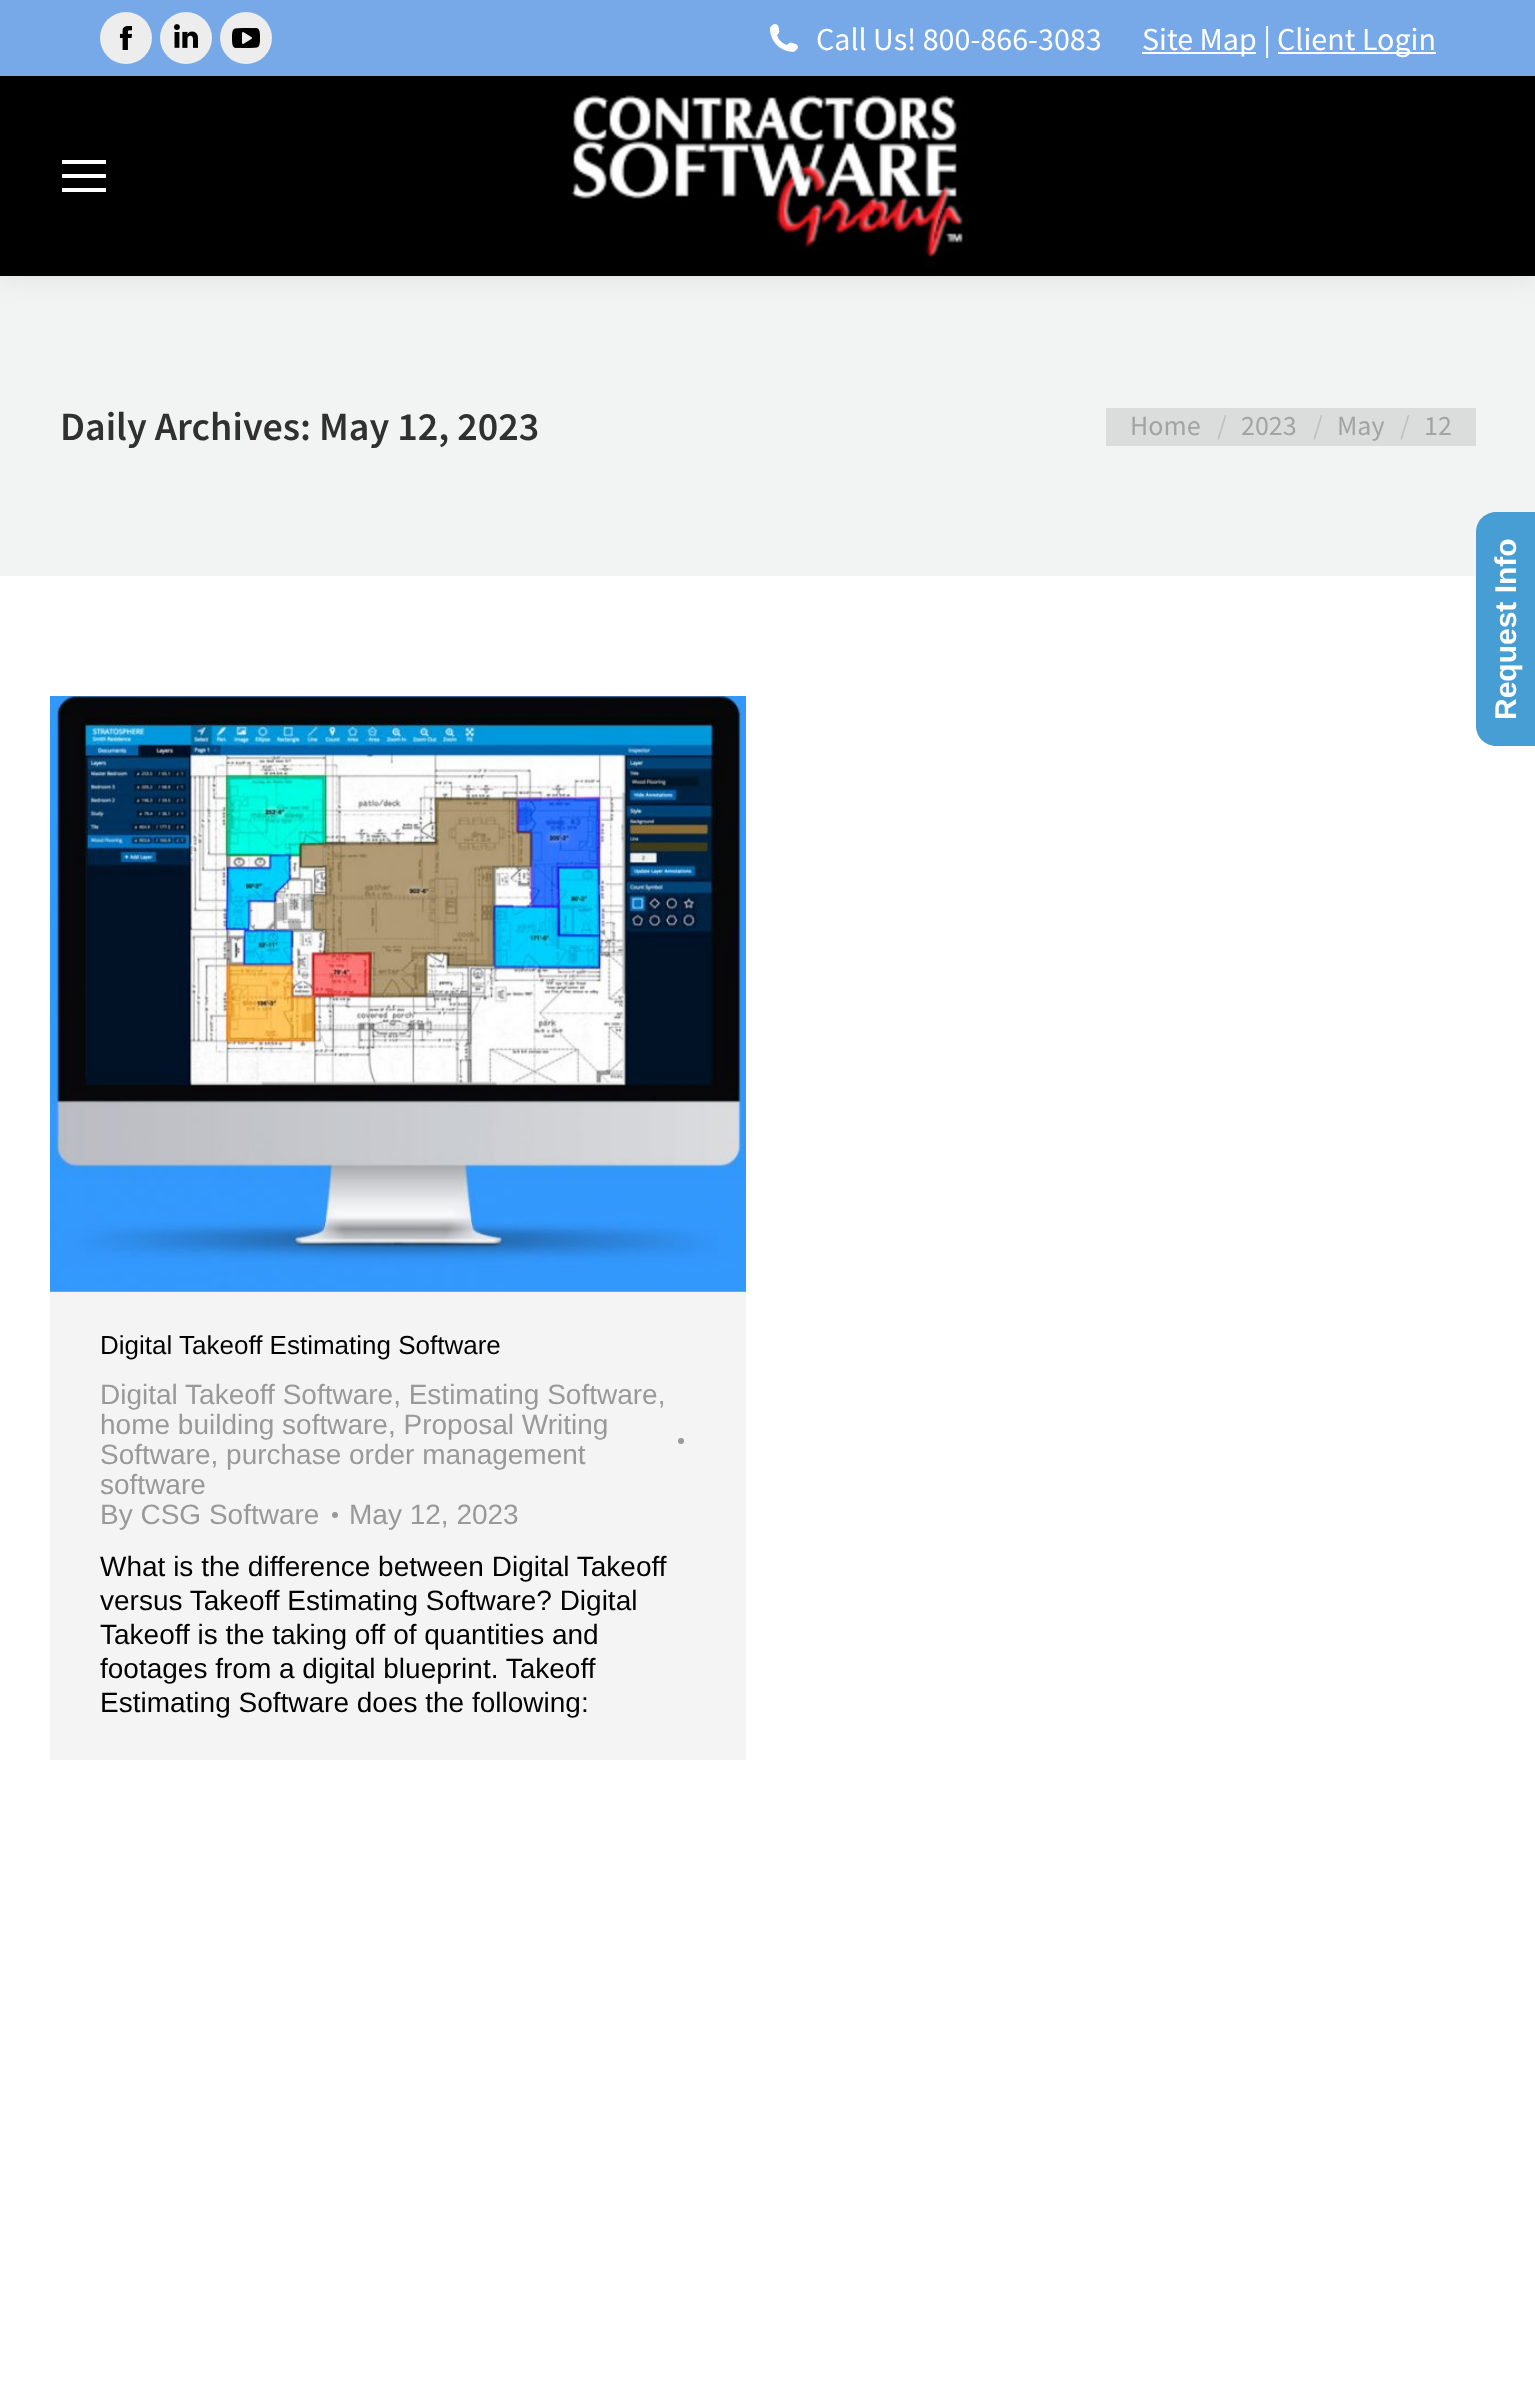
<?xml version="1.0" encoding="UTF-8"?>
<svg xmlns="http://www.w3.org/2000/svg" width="1535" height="2391">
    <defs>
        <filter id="blur1" x="-50%" y="-200%" width="200%" height="500%"><feGaussianBlur stdDeviation="15"/></filter>
    </defs>
    <rect width="100%" height="100%" fill="#FFFFFF"/>
    <rect x="0" y="276" width="1535" height="300" fill="#F2F3F3"/>
    <rect x="-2" y="-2" width="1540" height="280" fill="#000000" fill-opacity="0.07" filter="url(#blur1)"/>
    <rect x="0" y="76" width="1535" height="200" fill="#000000"/>
    <rect x="0" y="0" width="1535" height="76" fill="#77A9E8"/>
    <circle cx="126" cy="38" r="26" fill="#EDEDED"/>
    <image x="119" y="26" width="14" height="24" href="img_01.png"/>
    <circle cx="186" cy="38" r="26" fill="#EDEDED"/>
    <image x="174" y="24" width="24" height="24" href="img_02.png"/>
    <circle cx="246" cy="38" r="26" fill="#EDEDED"/>
    <image x="232" y="28" width="28" height="20" href="img_03.png"/>
    <image x="770" y="24" width="28" height="28" href="img_04.png"/>
    <text x="816" y="50" font-family="Source Sans Pro" font-size="32" fill="#FFFFFF">Call Us! 800-866-3083</text>
    <rect x="1142" y="52" width="114" height="2" fill="#FFFFFF"/>
    <text x="1142" y="50" font-family="Source Sans Pro" font-size="32" fill="#FFFFFF">Site Map |</text>
    <rect x="1278" y="52" width="158" height="2" fill="#FFFFFF"/>
    <text x="1277" y="50" font-family="Source Sans Pro" font-size="32" fill="#FFFFFF">Client Login</text>
    <rect x="62" y="160" width="44" height="4" fill="#FFFFFF"/>
    <rect x="62" y="174" width="44" height="4" fill="#FFFFFF"/>
    <rect x="62" y="188" width="44" height="4" fill="#FFFFFF"/>
    <image x="571" y="95" width="397" height="173" href="img_05.png"/>
    <text x="60" y="440" font-family="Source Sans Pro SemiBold" font-size="40" font-weight="600" fill="#303030">Daily Archives: May 12, 2023</text>
    <rect x="1106" y="408" width="370" height="38" fill="#DBDDDD"/>
    <text x="1130" y="435" font-family="Source Sans Pro" font-size="28" fill="#A3A3A3">Home</text>
    <text x="1217" y="435" font-family="Source Sans Pro" font-size="28" fill="#BFC0C0">/</text>
    <text x="1241" y="435" font-family="Source Sans Pro" font-size="28" fill="#A3A3A3">2023</text>
    <text x="1313" y="435" font-family="Source Sans Pro" font-size="28" fill="#BFC0C0">/</text>
    <text x="1337" y="435" font-family="Source Sans Pro" font-size="28" fill="#A3A3A3">May</text>
    <text x="1400" y="435" font-family="Source Sans Pro" font-size="28" fill="#BFC0C0">/</text>
    <text x="1424" y="435" font-family="Source Sans Pro" font-size="28" fill="#A3A3A3">12</text>
    <rect x="50" y="1291" width="696" height="469" fill="#F4F4F4"/>
    <image x="50" y="696" width="696" height="596" href="img_06.png"/>
    <text x="100" y="1354" font-family="Liberation Sans" font-size="26" fill="#000000">Digital Takeoff Estimating Software</text>
    <text font-family="Liberation Sans" font-size="28" fill="#999999">
        <tspan x="100" y="1404">Digital Takeoff Software, Estimating Software,</tspan>
        <tspan x="100" y="1434">home building software, Proposal Writing</tspan>
    </text>
    <circle cx="681" cy="1441" r="3" fill="#999999"/>
    <text font-family="Liberation Sans" font-size="28" fill="#999999">
        <tspan x="100" y="1464">Software, purchase order management</tspan>
        <tspan x="100" y="1494">software</tspan>
        <tspan x="100" y="1524">By CSG Software</tspan>
    </text>
    <circle cx="335" cy="1515" r="3" fill="#999999"/>
    <text x="349" y="1524" font-family="Liberation Sans" font-size="28" fill="#999999">May 12, 2023</text>
    <text font-family="Liberation Sans" font-size="28" fill="#000000">
        <tspan x="100" y="1576">What is the difference between Digital Takeoff</tspan>
        <tspan x="100" y="1610">versus Takeoff Estimating Software? Digital</tspan>
        <tspan x="100" y="1644">Takeoff is the taking off of quantities and</tspan>
        <tspan x="100" y="1678">footages from a digital blueprint. Takeoff</tspan>
        <tspan x="100" y="1712">Estimating Software does the following:</tspan>
    </text>
    <path d="M 1476 726 V 532 C 1476 521 1485 512 1496 512 H 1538 V 746 H 1496 C 1485 746 1476 737 1476 726 Z" fill="#479ED4"/>
    <text x="1516" y="720" transform="rotate(-90 1516 720)" font-family="Liberation Sans" font-size="30" font-weight="700" fill="#FFFFFF">Request Info</text>
</svg>
